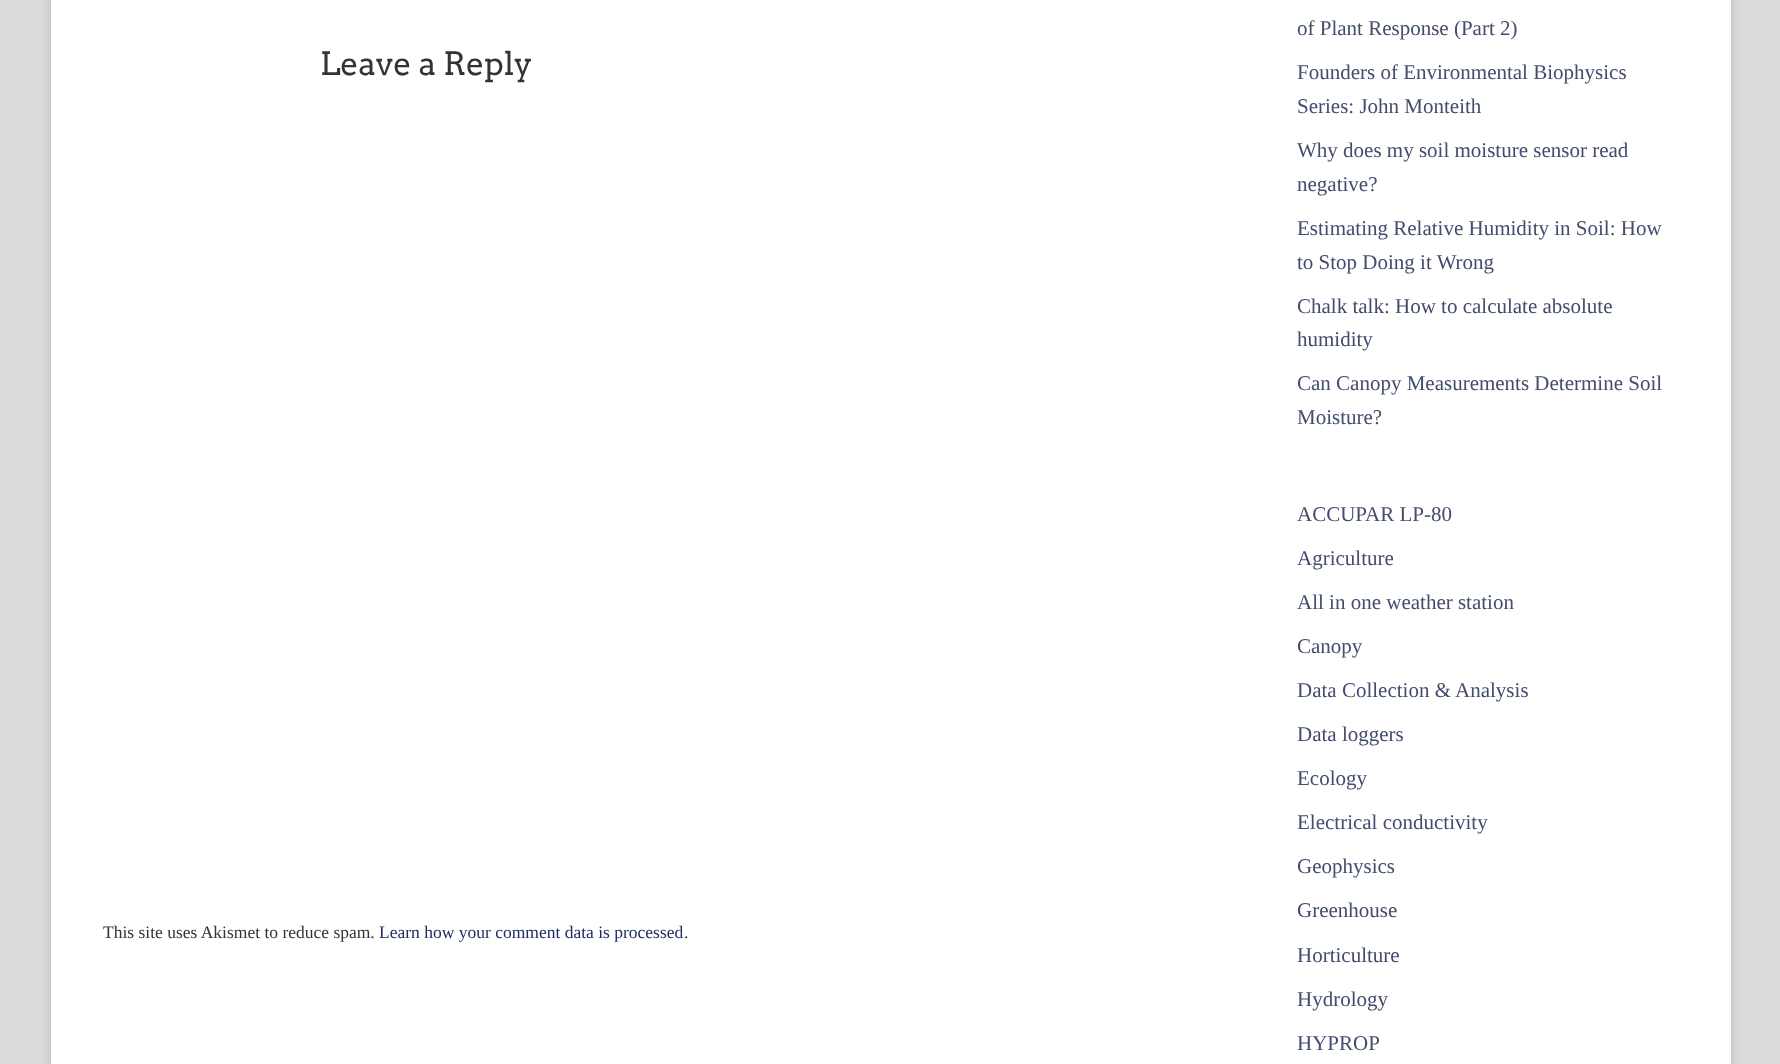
<?xml version="1.0" encoding="UTF-8"?>
<svg xmlns="http://www.w3.org/2000/svg" width="1780" height="1064">
    <defs>
        <filter id="blur1" x="-50%" y="-200%" width="200%" height="500%"><feGaussianBlur stdDeviation="5"/></filter>
    </defs>
    <rect width="100%" height="100%" fill="#DBDBDB"/>
    <rect x="51" y="-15" width="1680" height="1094" fill="#646464" fill-opacity="0.3" filter="url(#blur1)"/>
    <rect x="51" y="0" width="1680" height="1064" fill="#FFFFFF"/>
    <text x="320" y="75" font-family="Arvo" font-size="32" fill="#333333">Leave a Reply</text>
    <text x="103" y="938" font-family="Liberation Serif" font-size="17.5" fill="#333333">This site uses Akismet to reduce spam.</text>
    <text x="379" y="938" font-family="Liberation Serif" font-size="17.5" fill="#1F2D61">Learn how your comment data is processed</text>
    <text x="684" y="938" font-family="Liberation Serif" font-size="17.5" fill="#333333">.</text>
    <text x="1297" y="35" font-family="Liberation Serif" font-size="21" fill="#434C6D">of Plant Response (Part 2)</text>
    <text font-family="Liberation Serif" font-size="21" fill="#434C6D">
        <tspan x="1297" y="79">Founders of Environmental Biophysics</tspan>
        <tspan x="1297" y="113">Series: John Monteith</tspan>
    </text>
    <text font-family="Liberation Serif" font-size="21" fill="#434C6D">
        <tspan x="1297" y="157">Why does my soil moisture sensor read</tspan>
        <tspan x="1297" y="191">negative?</tspan>
    </text>
    <text font-family="Liberation Serif" font-size="21" fill="#434C6D">
        <tspan x="1297" y="235">Estimating Relative Humidity in Soil: How</tspan>
        <tspan x="1297" y="269">to Stop Doing it Wrong</tspan>
    </text>
    <text font-family="Liberation Serif" font-size="21" fill="#434C6D">
        <tspan x="1297" y="313">Chalk talk: How to calculate absolute</tspan>
        <tspan x="1297" y="346">humidity</tspan>
    </text>
    <text font-family="Liberation Serif" font-size="21" fill="#434C6D">
        <tspan x="1297" y="390">Can Canopy Measurements Determine Soil</tspan>
        <tspan x="1297" y="424">Moisture?</tspan>
    </text>
    <text x="1297" y="521" font-family="Liberation Serif" font-size="21" fill="#434C6D">ACCUPAR LP-80</text>
    <text x="1297" y="565" font-family="Liberation Serif" font-size="21" fill="#434C6D">Agriculture</text>
    <text x="1297" y="609" font-family="Liberation Serif" font-size="21" fill="#434C6D">All in one weather station</text>
    <text x="1297" y="653" font-family="Liberation Serif" font-size="21" fill="#434C6D">Canopy</text>
    <text x="1297" y="697" font-family="Liberation Serif" font-size="21" fill="#434C6D">Data Collection &amp; Analysis</text>
    <text x="1297" y="741" font-family="Liberation Serif" font-size="21" fill="#434C6D">Data loggers</text>
    <text x="1297" y="785" font-family="Liberation Serif" font-size="21" fill="#434C6D">Ecology</text>
    <text x="1297" y="829" font-family="Liberation Serif" font-size="21" fill="#434C6D">Electrical conductivity</text>
    <text x="1297" y="873" font-family="Liberation Serif" font-size="21" fill="#434C6D">Geophysics</text>
    <text x="1297" y="917" font-family="Liberation Serif" font-size="21" fill="#434C6D">Greenhouse</text>
    <text x="1297" y="962" font-family="Liberation Serif" font-size="21" fill="#434C6D">Horticulture</text>
    <text x="1297" y="1006" font-family="Liberation Serif" font-size="21" fill="#434C6D">Hydrology</text>
    <text x="1297" y="1050" font-family="Liberation Serif" font-size="21" fill="#434C6D">HYPROP</text>
</svg>
